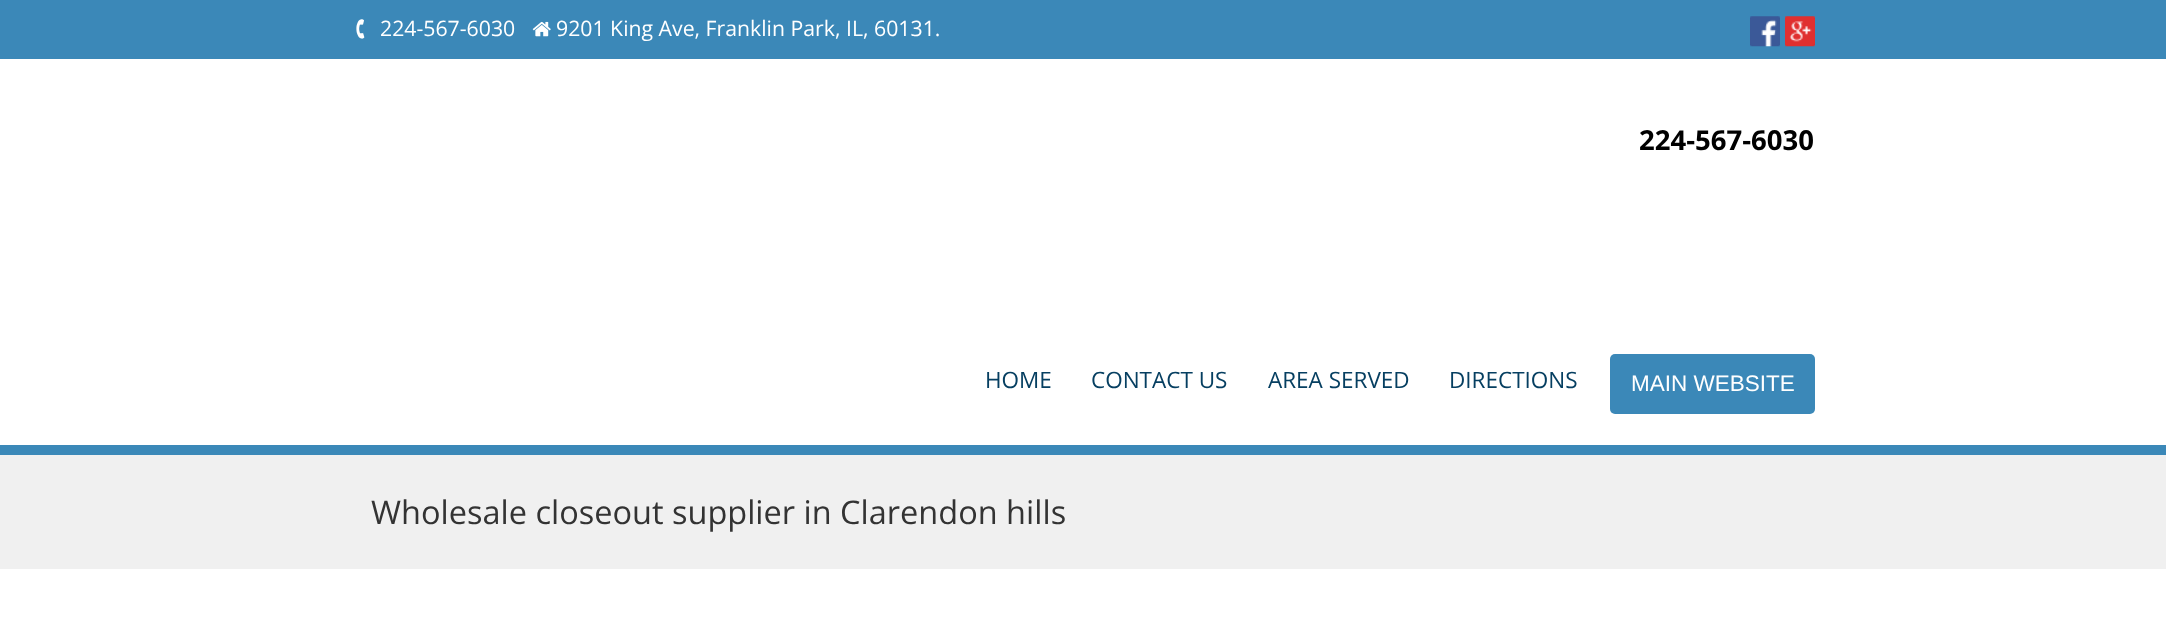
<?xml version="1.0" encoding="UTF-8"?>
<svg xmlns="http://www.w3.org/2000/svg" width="2166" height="641">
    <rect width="100%" height="100%" fill="#FFFFFF"/>
    <rect x="0" y="0" width="2166" height="59" fill="#3B88B8"/>
    <image x="356" y="19" width="9" height="20" href="img_01.png"/>
    <text x="380" y="36" font-family="Open Sans" font-size="21.25" fill="#FFFFFF">224-567-6030</text>
    <image x="532" y="21" width="19" height="16" href="img_02.png"/>
    <text x="556" y="36" font-family="Open Sans" font-size="21.25" fill="#FFFFFF">9201 King Ave, Franklin Park, IL, 60131.</text>
    <image x="1750" y="16" width="30" height="31" href="img_03.png"/>
    <image x="1785" y="16" width="30" height="31" href="img_04.png"/>
    <text x="1639" y="150" font-family="Open Sans" font-size="27.5" font-weight="700" fill="#000000">224-567-6030</text>
    <text x="985" y="388" font-family="Open Sans" font-size="22.5" fill="#063F61">HOME</text>
    <text x="1091" y="388" font-family="Open Sans" font-size="22.5" fill="#063F61">CONTACT US</text>
    <text x="1268" y="388" font-family="Open Sans" font-size="22.5" fill="#063F61">AREA SERVED</text>
    <text x="1449" y="388" font-family="Open Sans" font-size="22.5" fill="#063F61">DIRECTIONS</text>
    <rect x="1610" y="354" width="205" height="60" rx="5" fill="#3B88B8"/>
    <text x="1631" y="391" font-family="Liberation Sans" font-size="22.5" fill="#FFFFFF">MAIN WEBSITE</text>
    <rect x="0" y="445" width="2166" height="10" fill="#3B88B8"/>
    <rect x="0" y="455" width="2166" height="114" fill="#F0F0F0"/>
    <text x="371" y="524" font-family="Open Sans" font-size="32.5" fill="#333333">Wholesale closeout supplier in Clarendon hills</text>
</svg>
